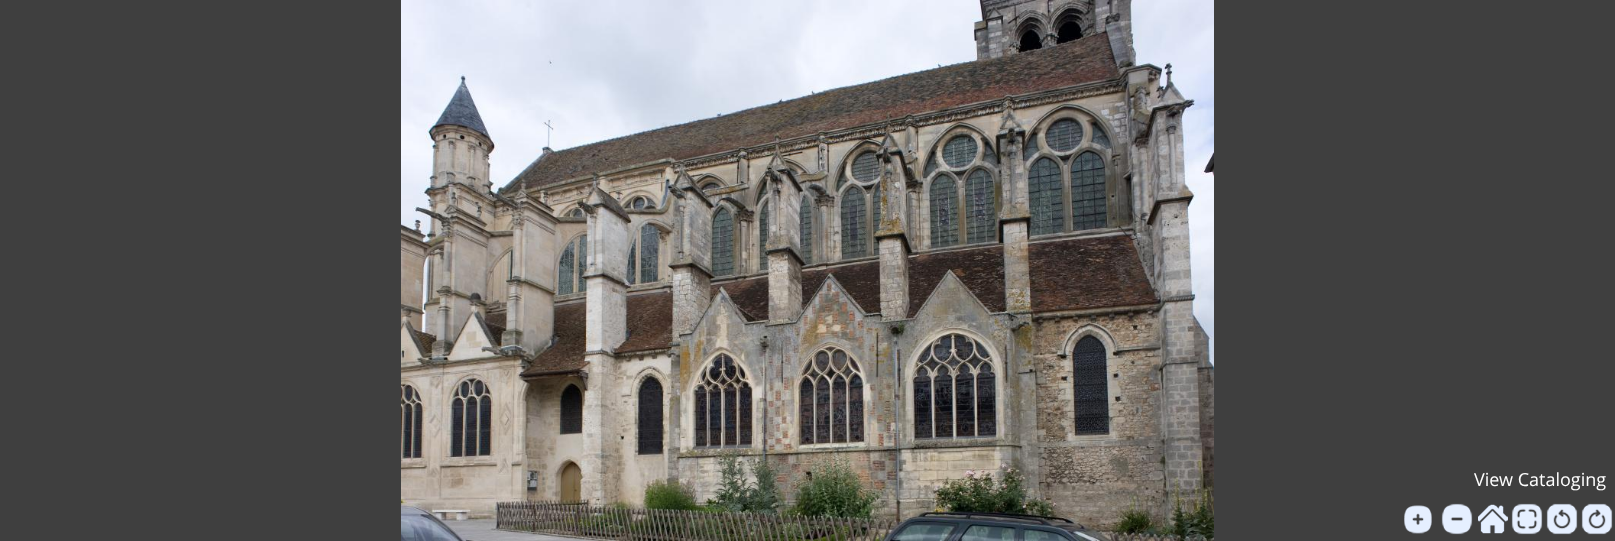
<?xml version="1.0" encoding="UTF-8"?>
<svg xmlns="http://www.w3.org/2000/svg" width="1615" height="541">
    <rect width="100%" height="100%" fill="#3F3F3F"/>
    <image x="401" y="0" width="813" height="541" href="img_01.png"/>
    <image x="1404" y="505" width="28" height="29" href="img_02.png"/>
    <image x="1404" y="505" width="28" height="29" href="img_03.png"/>
    <image x="1441" y="503" width="32" height="32" href="img_04.png"/>
    <image x="1442" y="504" width="30" height="30" href="img_05.png"/>
    <image x="1478" y="504" width="30" height="30" href="img_06.png"/>
    <image x="1478" y="504" width="30" height="30" href="img_07.png"/>
    <image x="1511" y="503" width="32" height="32" href="img_08.png"/>
    <image x="1512" y="504" width="30" height="30" href="img_09.png"/>
    <image x="1546" y="503" width="32" height="32" href="img_10.png"/>
    <image x="1547" y="504" width="30" height="30" href="img_11.png"/>
    <image x="1581" y="503" width="32" height="32" href="img_12.png"/>
    <image x="1582" y="504" width="30" height="30" href="img_13.png"/>
    <text x="1474" y="486" font-family="Open Sans" font-size="18" fill="#FFFFFF">View Cataloging</text>
</svg>
